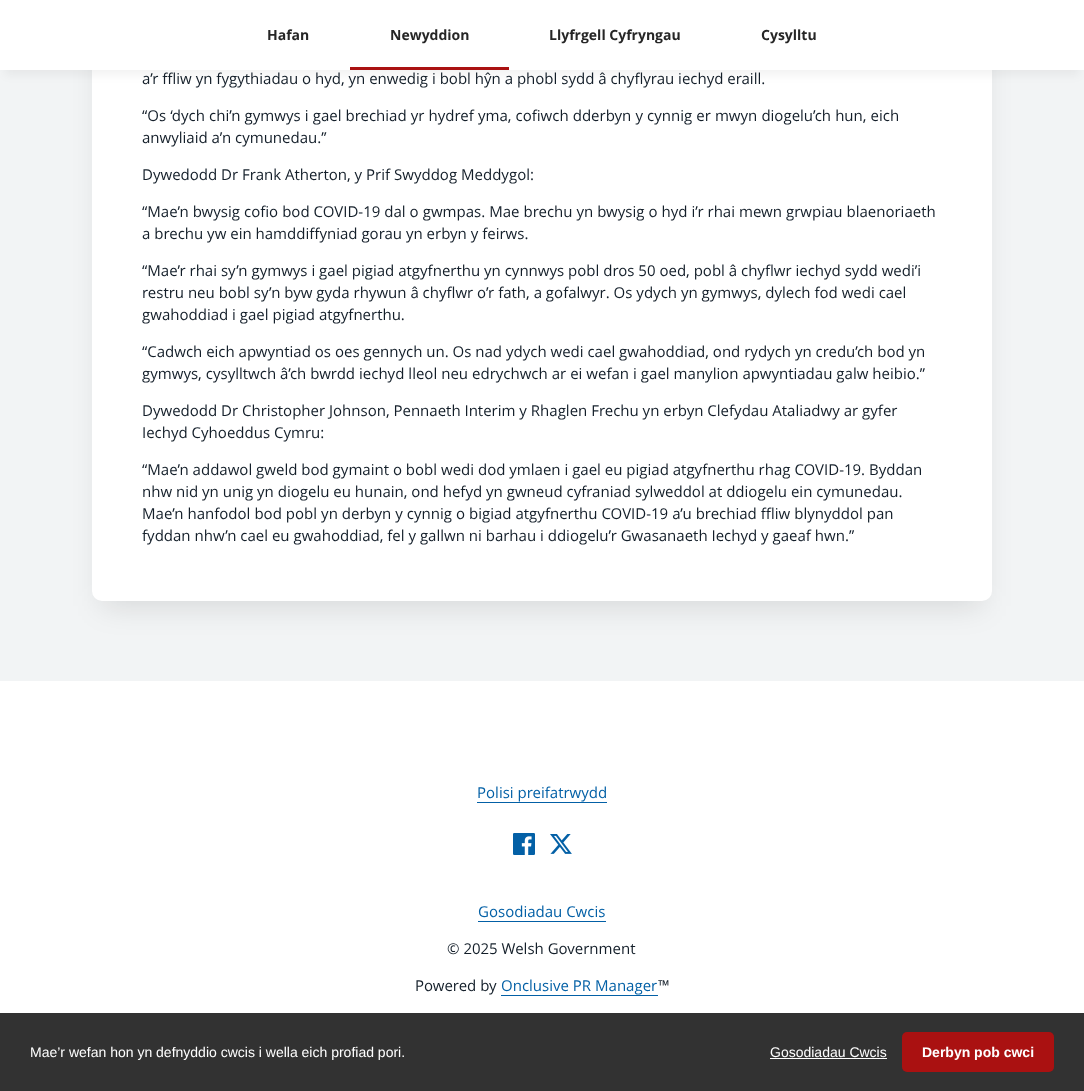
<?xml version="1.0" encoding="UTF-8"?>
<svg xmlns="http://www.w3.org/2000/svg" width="1084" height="1091">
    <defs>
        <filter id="blur1" x="-50%" y="-200%" width="200%" height="500%"><feGaussianBlur stdDeviation="15"/></filter>
        <filter id="blur2" x="-50%" y="-200%" width="200%" height="500%"><feGaussianBlur stdDeviation="5"/></filter>
    </defs>
    <rect width="100%" height="100%" fill="#F2F4F5"/>
    <rect x="102" y="-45" width="880" height="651" fill="#000000" fill-opacity="0.12" filter="url(#blur1)"/>
    <rect x="92" y="-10" width="900" height="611" rx="10" fill="#FFFFFF"/>
    <rect x="5" y="15" width="1074" height="60" fill="#000000" fill-opacity="0.05" filter="url(#blur2)"/>
    <rect x="0" y="0" width="1084" height="70" fill="#FFFFFF"/>
    <text x="267" y="40" font-family="Open Sans" font-size="14" font-weight="700" fill="#262626">Hafan</text>
    <text x="390" y="40" font-family="Open Sans" font-size="14" font-weight="700" fill="#262626">Newyddion</text>
    <rect x="350" y="67" width="159" height="3" fill="#AA1111"/>
    <text x="549" y="40" font-family="Open Sans" font-size="14" font-weight="700" fill="#262626">Llyfrgell Cyfryngau</text>
    <text x="761" y="40" font-family="Open Sans" font-size="14" font-weight="700" fill="#262626">Cysylltu</text>
    <text x="142" y="84" font-family="Open Sans" font-size="15" fill="#131E29">a’r ffliw yn fygythiadau o hyd, yn enwedig i bobl hŷn a phobl sydd â chyflyrau iechyd eraill.</text>
    <text font-family="Open Sans" font-size="15" fill="#131E29">
        <tspan x="142" y="121" word-spacing="0.2">“Os ‘dych chi’n gymwys i gael brechiad yr hydref yma, cofiwch dderbyn y cynnig er mwyn diogelu’ch hun, eich</tspan>
        <tspan x="142" y="143">anwyliaid a’n cymunedau.”</tspan>
    </text>
    <text x="142" y="180" font-family="Open Sans" font-size="15" fill="#131E29">Dywedodd Dr Frank Atherton, y Prif Swyddog Meddygol:</text>
    <text font-family="Open Sans" font-size="15" fill="#131E29">
        <tspan x="142" y="217" word-spacing="0.1">“Mae’n bwysig cofio bod COVID-19 dal o gwmpas. Mae brechu yn bwysig o hyd i’r rhai mewn grwpiau blaenoriaeth</tspan>
        <tspan x="142" y="239">a brechu yw ein hamddiffyniad gorau yn erbyn y feirws.</tspan>
    </text>
    <text font-family="Open Sans" font-size="15" fill="#131E29">
        <tspan x="142" y="276">“Mae’r rhai sy’n gymwys i gael pigiad atgyfnerthu yn cynnwys pobl dros 50 oed, pobl â chyflwr iechyd sydd wedi’i</tspan>
        <tspan x="142" y="298">restru neu bobl sy’n byw gyda rhywun â chyflwr o’r fath, a gofalwyr. Os ydych yn gymwys, dylech fod wedi cael</tspan>
        <tspan x="142" y="320">gwahoddiad i gael pigiad atgyfnerthu.</tspan>
    </text>
    <text font-family="Open Sans" font-size="15" fill="#131E29">
        <tspan x="142" y="357">“Cadwch eich apwyntiad os oes gennych un. Os nad ydych wedi cael gwahoddiad, ond rydych yn credu’ch bod yn</tspan>
        <tspan x="142" y="379" word-spacing="0.1">gymwys, cysylltwch â’ch bwrdd iechyd lleol neu edrychwch ar ei wefan i gael manylion apwyntiadau galw heibio.”</tspan>
    </text>
    <text font-family="Open Sans" font-size="15" fill="#131E29">
        <tspan x="142" y="416">Dywedodd Dr Christopher Johnson, Pennaeth Interim y Rhaglen Frechu yn erbyn Clefydau Ataliadwy ar gyfer</tspan>
        <tspan x="142" y="438">Iechyd Cyhoeddus Cymru:</tspan>
    </text>
    <text font-family="Open Sans" font-size="15" fill="#131E29">
        <tspan x="142" y="475">“Mae’n addawol gweld bod gymaint o bobl wedi dod ymlaen i gael eu pigiad atgyfnerthu rhag COVID-19. Byddan</tspan>
        <tspan x="142" y="497">nhw nid yn unig yn diogelu eu hunain, ond hefyd yn gwneud cyfraniad sylweddol at ddiogelu ein cymunedau.</tspan>
        <tspan x="142" y="519" word-spacing="0.1">Mae’n hanfodol bod pobl yn derbyn y cynnig o bigiad atgyfnerthu COVID-19 a’u brechiad ffliw blynyddol pan</tspan>
        <tspan x="142" y="541">fyddan nhw’n cael eu gwahoddiad, fel y gallwn ni barhau i ddiogelu’r Gwasanaeth Iechyd y gaeaf hwn.”</tspan>
    </text>
    <rect x="0" y="681" width="1084" height="332" fill="#FFFFFF"/>
    <text x="477" y="798" font-family="Open Sans" font-size="15" fill="#0360A6">Polisi preifatrwydd</text>
    <rect x="477" y="802" width="130" height="1" fill="#0360A6"/>
    <image x="513" y="833" width="22" height="22" href="img_01.png"/>
    <image x="550" y="834" width="22" height="20" href="img_02.png"/>
    <text x="478" y="917" font-family="Open Sans" font-size="15" fill="#0360A6">Gosodiadau Cwcis</text>
    <rect x="478" y="921" width="128" height="1" fill="#0360A6"/>
    <text x="447" y="954" font-family="Open Sans" font-size="15" fill="#131E29">© 2025 Welsh Government</text>
    <text x="415" y="991" font-family="Open Sans" font-size="15" fill="#131E29">Powered by</text>
    <text x="501" y="991" font-family="Open Sans" font-size="15" fill="#0360A6">Onclusive PR Manager</text>
    <rect x="501" y="995" width="157" height="1" fill="#0360A6"/>
    <text x="658" y="991" font-family="Open Sans" font-size="15" fill="#131E29">™</text>
    <rect x="0" y="1013" width="1084" height="78" fill="#323232"/>
    <text x="30" y="1057" font-family="Liberation Sans" font-size="14" fill="#FFFFFF">Mae’r wefan hon yn defnyddio cwcis i wella eich profiad pori.</text>
    <text x="770" y="1057" font-family="Liberation Sans" font-size="14" fill="#FFFFFF">Gosodiadau Cwcis</text>
    <rect x="770" y="1058" width="117" height="1" fill="#FFFFFF"/>
    <rect x="902" y="1032" width="152" height="40" rx="5" fill="#AA1111"/>
    <text x="922" y="1057" font-family="Liberation Sans" font-size="14" font-weight="700" fill="#FFFFFF">Derbyn pob cwci</text>
</svg>
